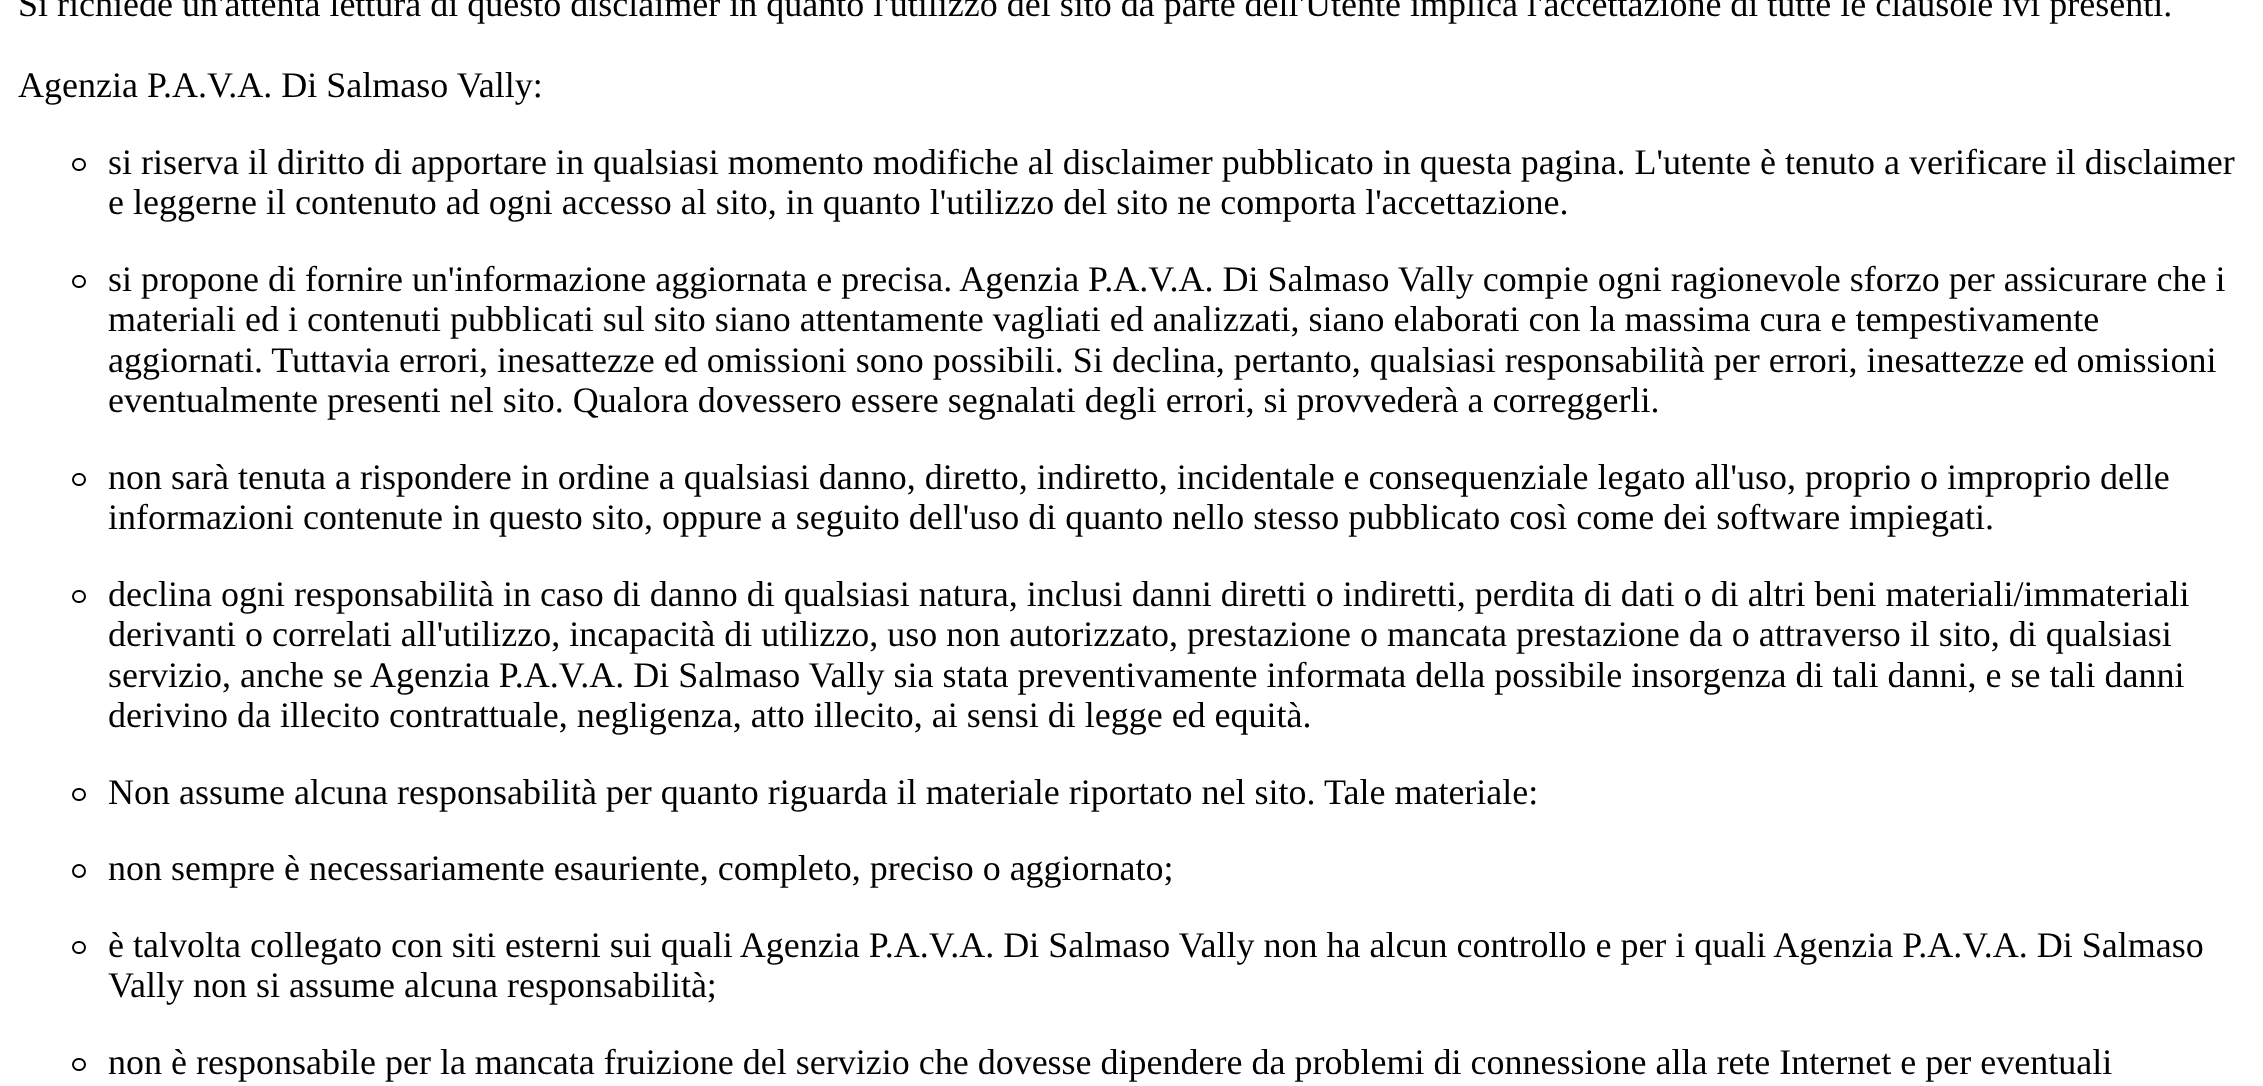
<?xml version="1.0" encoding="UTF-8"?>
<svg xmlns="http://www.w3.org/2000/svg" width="2263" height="1086">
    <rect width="100%" height="100%" fill="#FFFFFF"/>
    <text x="18" y="16" font-family="Liberation Serif" font-size="36" fill="#000000">Si richiede un'attenta lettura di questo disclaimer in quanto l'utilizzo del sito da parte dell'Utente implica l'accettazione di tutte le clausole ivi presenti.</text>
    <text x="18" y="97" font-family="Liberation Serif" font-size="36" fill="#000000">Agenzia P.A.V.A. Di Salmaso Vally:</text>
    <rect x="73" y="159" width="12" height="11" rx="5.5" fill="none" stroke="#000000" stroke-width="2"/>
    <text font-family="Liberation Serif" font-size="36" fill="#000000">
        <tspan x="108" y="174">si riserva il diritto di apportare in qualsiasi momento modifiche al disclaimer pubblicato in questa pagina. L'utente è tenuto a verificare il disclaimer</tspan>
        <tspan x="108" y="214">e leggerne il contenuto ad ogni accesso al sito, in quanto l'utilizzo del sito ne comporta l'accettazione.</tspan>
    </text>
    <rect x="73" y="276" width="12" height="11" rx="5.5" fill="none" stroke="#000000" stroke-width="2"/>
    <text font-family="Liberation Serif" font-size="36" fill="#000000">
        <tspan x="108" y="291">si propone di fornire un'informazione aggiornata e precisa. Agenzia P.A.V.A. Di Salmaso Vally compie ogni ragionevole sforzo per assicurare che i</tspan>
        <tspan x="108" y="331">materiali ed i contenuti pubblicati sul sito siano attentamente vagliati ed analizzati, siano elaborati con la massima cura e tempestivamente</tspan>
        <tspan x="108" y="372">aggiornati. Tuttavia errori, inesattezze ed omissioni sono possibili. Si declina, pertanto, qualsiasi responsabilità per errori, inesattezze ed omissioni</tspan>
        <tspan x="108" y="412">eventualmente presenti nel sito. Qualora dovessero essere segnalati degli errori, si provvederà a correggerli.</tspan>
    </text>
    <rect x="73" y="474" width="12" height="11" rx="5.5" fill="none" stroke="#000000" stroke-width="2"/>
    <text font-family="Liberation Serif" font-size="36" fill="#000000">
        <tspan x="108" y="489">non sarà tenuta a rispondere in ordine a qualsiasi danno, diretto, indiretto, incidentale e consequenziale legato all'uso, proprio o improprio delle</tspan>
        <tspan x="108" y="529">informazioni contenute in questo sito, oppure a seguito dell'uso di quanto nello stesso pubblicato così come dei software impiegati.</tspan>
    </text>
    <rect x="73" y="591" width="12" height="11" rx="5.5" fill="none" stroke="#000000" stroke-width="2"/>
    <text font-family="Liberation Serif" font-size="36" fill="#000000">
        <tspan x="108" y="606">declina ogni responsabilità in caso di danno di qualsiasi natura, inclusi danni diretti o indiretti, perdita di dati o di altri beni materiali/immateriali</tspan>
        <tspan x="108" y="646">derivanti o correlati all'utilizzo, incapacità di utilizzo, uso non autorizzato, prestazione o mancata prestazione da o attraverso il sito, di qualsiasi</tspan>
        <tspan x="108" y="687">servizio, anche se Agenzia P.A.V.A. Di Salmaso Vally sia stata preventivamente informata della possibile insorgenza di tali danni, e se tali danni</tspan>
        <tspan x="108" y="727">derivino da illecito contrattuale, negligenza, atto illecito, ai sensi di legge ed equità.</tspan>
    </text>
    <rect x="73" y="789" width="12" height="11" rx="5.5" fill="none" stroke="#000000" stroke-width="2"/>
    <text x="108" y="804" font-family="Liberation Serif" font-size="36" fill="#000000">Non assume alcuna responsabilità per quanto riguarda il materiale riportato nel sito. Tale materiale:</text>
    <circle cx="79" cy="871" r="6" fill="none" stroke="#000000" stroke-width="2"/>
    <text x="108" y="880" font-family="Liberation Serif" font-size="36" fill="#000000">non sempre è necessariamente esauriente, completo, preciso o aggiornato;</text>
    <rect x="73" y="942" width="12" height="11" rx="5.5" fill="none" stroke="#000000" stroke-width="2"/>
    <text font-family="Liberation Serif" font-size="36" fill="#000000">
        <tspan x="108" y="957">è talvolta collegato con siti esterni sui quali Agenzia P.A.V.A. Di Salmaso Vally non ha alcun controllo e per i quali Agenzia P.A.V.A. Di Salmaso</tspan>
        <tspan x="108" y="997">Vally non si assume alcuna responsabilità;</tspan>
    </text>
    <rect x="73" y="1059" width="12" height="11" rx="5.5" fill="none" stroke="#000000" stroke-width="2"/>
    <text x="108" y="1074" font-family="Liberation Serif" font-size="36" fill="#000000">non è responsabile per la mancata fruizione del servizio che dovesse dipendere da problemi di connessione alla rete Internet e per eventuali</text>
</svg>
